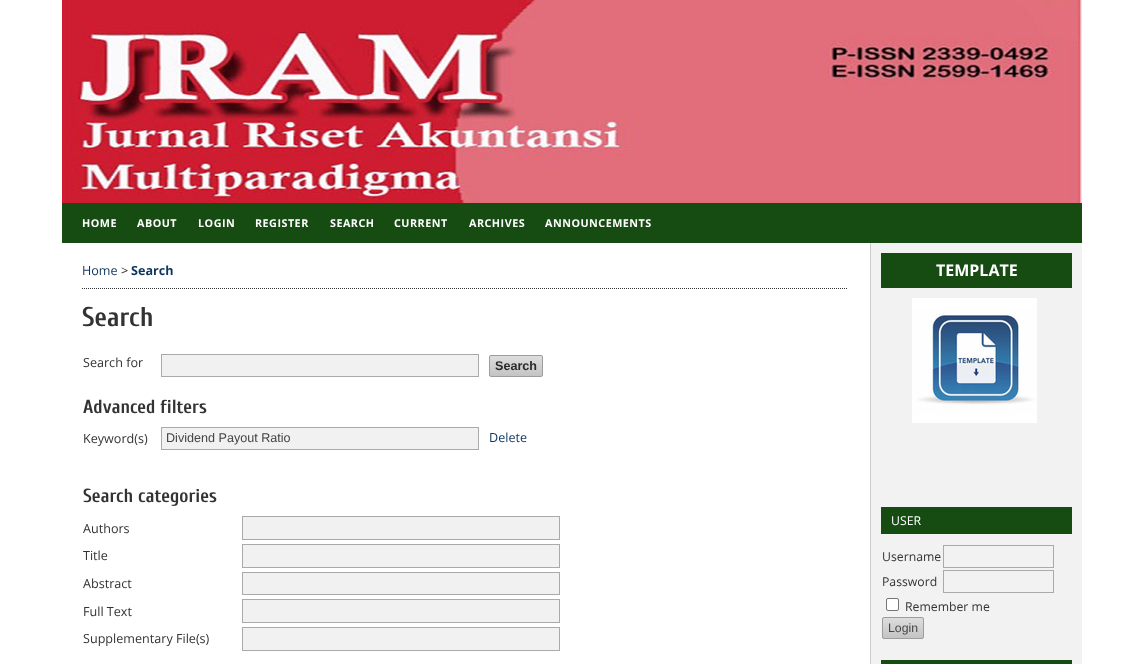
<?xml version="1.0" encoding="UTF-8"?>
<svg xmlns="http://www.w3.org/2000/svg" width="1144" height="664">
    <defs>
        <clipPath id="clip1"><rect x="489" y="355" width="54" height="22" rx="2"/></clipPath>
        <linearGradient id="g1" gradientUnits="userSpaceOnUse" x1="516" y1="356" x2="516" y2="376"><stop offset="0" stop-color="#DDDDDD"/><stop offset="1" stop-color="#C4C4C4"/></linearGradient>
        <clipPath id="clip2"><rect x="882" y="617" width="42" height="22" rx="2"/></clipPath>
        <linearGradient id="g2" gradientUnits="userSpaceOnUse" x1="903" y1="618" x2="903" y2="638"><stop offset="0" stop-color="#DDDDDD"/><stop offset="1" stop-color="#C4C4C4"/></linearGradient>
    </defs>
    <rect width="100%" height="100%" fill="#FFFFFF"/>
    <image x="62" y="0" width="1020" height="203" href="img_01.png"/>
    <rect x="62" y="203" width="1020" height="40" fill="#164B12"/>
    <text x="82" y="227" font-family="Open Sans" font-size="10.75" font-weight="700" letter-spacing="0.5" fill="#FFFFFF">HOME</text>
    <text x="137" y="227" font-family="Open Sans" font-size="10.75" font-weight="700" letter-spacing="0.5" fill="#FFFFFF">ABOUT</text>
    <text x="198" y="227" font-family="Open Sans" font-size="10.75" font-weight="700" letter-spacing="0.5" fill="#FFFFFF">LOGIN</text>
    <text x="255" y="227" font-family="Open Sans" font-size="10.75" font-weight="700" letter-spacing="0.5" fill="#FFFFFF">REGISTER</text>
    <text x="330" y="227" font-family="Open Sans" font-size="10.75" font-weight="700" letter-spacing="0.5" fill="#FFFFFF">SEARCH</text>
    <text x="394" y="227" font-family="Open Sans" font-size="10.75" font-weight="700" letter-spacing="0.5" fill="#FFFFFF">CURRENT</text>
    <text x="469" y="227" font-family="Open Sans" font-size="10.75" font-weight="700" letter-spacing="0.5" fill="#FFFFFF">ARCHIVES</text>
    <text x="545" y="227" font-family="Open Sans" font-size="10.75" font-weight="700" letter-spacing="0.5" fill="#FFFFFF">ANNOUNCEMENTS</text>
    <path d="M 82 288.5 H 847" fill="none" stroke="#333333" stroke-dasharray="1 1"/>
    <text x="82" y="275" font-family="Open Sans" font-size="12.6" fill="#0D355E">Home</text>
    <text x="121" y="275" font-family="Open Sans" font-size="12.6" fill="#333333">&gt;</text>
    <text x="131" y="275" font-family="Open Sans" font-size="12.6" font-weight="700" fill="#0D355E">Search</text>
    <text x="82" y="326" font-family="Cuprum" font-size="27" font-weight="700" fill="#333333">Search</text>
    <text x="83" y="367" font-family="Open Sans" font-size="12.6" fill="#333333">Search for</text>
    <rect x="161.5" y="354.5" width="317" height="22" fill="#F1F1F1" stroke="#AAAAAA"/>
    <g clip-path="url(#clip1)">
        <rect x="489" y="356" width="54" height="20" fill="url(#g1)"/>
    </g>
    <rect x="489.5" y="355.5" width="53" height="21" rx="1.5" fill="none" stroke="#9D9D9D"/>
    <text x="495" y="370" font-family="Liberation Sans" font-size="12.6" font-weight="700" fill="#2B2B2B">Search</text>
    <text x="83" y="413" font-family="Cuprum" font-size="19" font-weight="700" fill="#333333">Advanced filters</text>
    <text x="83" y="443" font-family="Open Sans" font-size="12.6" fill="#333333">Keyword(s)</text>
    <rect x="161.5" y="427.5" width="317" height="22" fill="#F1F1F1" stroke="#AAAAAA"/>
    <text x="166" y="442" font-family="Liberation Sans" font-size="12.6" fill="#444444">Dividend Payout Ratio</text>
    <text x="489" y="442" font-family="Open Sans" font-size="12.6" fill="#0D355E">Delete</text>
    <text x="83" y="502" font-family="Cuprum" font-size="19" font-weight="700" fill="#333333">Search categories</text>
    <text x="83" y="533" font-family="Open Sans" font-size="12.6" fill="#333333">Authors</text>
    <rect x="242.5" y="516.5" width="317" height="23" fill="#F1F1F1" stroke="#AAAAAA"/>
    <text x="83" y="560" font-family="Open Sans" font-size="12.6" fill="#333333">Title</text>
    <rect x="242.5" y="544.5" width="317" height="23" fill="#F1F1F1" stroke="#AAAAAA"/>
    <text x="83" y="588" font-family="Open Sans" font-size="12.6" fill="#333333">Abstract</text>
    <rect x="242.5" y="572.5" width="317" height="22" fill="#F1F1F1" stroke="#AAAAAA"/>
    <text x="83" y="616" font-family="Open Sans" font-size="12.6" fill="#333333">Full Text</text>
    <rect x="242.5" y="599.5" width="317" height="23" fill="#F1F1F1" stroke="#AAAAAA"/>
    <text x="83" y="643" font-family="Open Sans" font-size="12.6" fill="#333333">Supplementary File(s)</text>
    <rect x="242.5" y="627.5" width="317" height="23" fill="#F1F1F1" stroke="#AAAAAA"/>
    <rect x="871" y="243" width="211" height="421" fill="#F2F2F2"/>
    <rect x="870" y="243" width="1" height="421" fill="#CCCCCC"/>
    <rect x="881" y="253" width="191" height="35" fill="#164B12"/>
    <text x="936" y="276" font-family="Open Sans" font-size="16" font-weight="700" fill="#FFFFFF">TEMPLATE</text>
    <image x="912" y="298" width="125" height="125" href="img_02.png"/>
    <rect x="881" y="507" width="191" height="27" fill="#164B12"/>
    <text x="891" y="525" font-family="Open Sans" font-size="12.25" fill="#FFFFFF">USER</text>
    <text x="882" y="561" font-family="Open Sans" font-size="12.25" fill="#333333">Username</text>
    <rect x="943.5" y="545.5" width="110" height="22" fill="none" stroke="#AAAAAA"/>
    <text x="882" y="586" font-family="Open Sans" font-size="12.25" fill="#333333">Password</text>
    <rect x="943.5" y="570.5" width="110" height="22" fill="none" stroke="#AAAAAA"/>
    <rect x="886.5" y="598.5" width="12" height="12" rx="1.5" fill="#FFFFFF" stroke="#767676"/>
    <text x="905" y="611" font-family="Open Sans" font-size="12.25" fill="#333333">Remember me</text>
    <g clip-path="url(#clip2)">
        <rect x="882" y="618" width="42" height="20" fill="url(#g2)"/>
    </g>
    <rect x="882.5" y="617.5" width="41" height="21" rx="1.5" fill="none" stroke="#9D9D9D"/>
    <text x="888" y="632" font-family="Liberation Sans" font-size="12.25" fill="#444444">Login</text>
    <rect x="881" y="660" width="191" height="4" fill="#164B12"/>
</svg>
